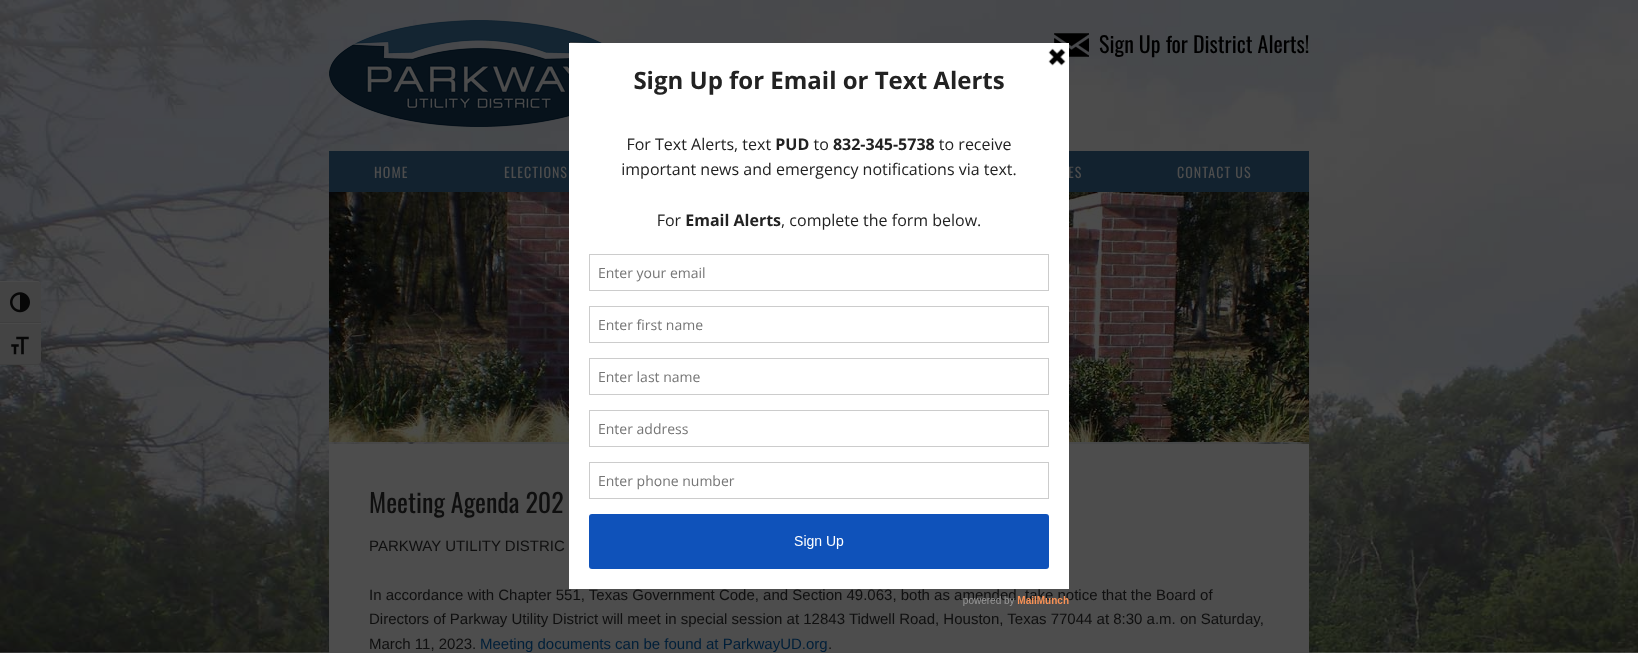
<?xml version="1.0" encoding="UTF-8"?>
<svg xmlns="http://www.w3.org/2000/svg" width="1638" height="653">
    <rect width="100%" height="100%" fill="#FFFFFF"/>
    <image x="0" y="0" width="1638" height="653" href="img_01.png"/>
    <image x="329" y="20" width="274" height="107" href="img_02.png"/>
    <image x="1054" y="33" width="35" height="24" href="img_03.png"/>
    <text x="1099" y="53" font-family="Oswald" font-size="22" fill="#000000">Sign Up for District Alerts!</text>
    <rect x="329" y="151" width="980" height="41" fill="#12222F"/>
    <text x="374" y="178" font-family="Oswald" font-size="14" letter-spacing="1" fill="#4D4D4D">HOME</text>
    <text x="504" y="178" font-family="Oswald" font-size="14" letter-spacing="1" fill="#4D4D4D">ELECTIONS</text>
    <text x="1068" y="178" font-family="Oswald" font-size="14" letter-spacing="1" fill="#4D4D4D">ES</text>
    <text x="1177" y="178" font-family="Oswald" font-size="14" letter-spacing="1" fill="#4D4D4D">CONTACT US</text>
    <image x="329" y="192" width="980" height="250" href="img_04.png"/>
    <rect x="329" y="444" width="980" height="209" fill="#4D4D4D"/>
    <text x="369" y="513" font-family="Oswald" font-size="26" fill="#0F0F0F">Meeting Agenda 202</text>
    <text x="369" y="551" font-family="Liberation Sans" font-size="15" fill="#0F0F0F">PARKWAY UTILITY DISTRIC</text>
    <text font-family="Liberation Sans" font-size="15" fill="#0F0F0F">
        <tspan x="369" y="600">In accordance with Chapter 551, Texas Government Code, and Section 49.063, both as amended, take notice that the Board of</tspan>
        <tspan x="369" y="624">Directors of Parkway Utility District will meet in special session at 12843 Tidwell Road, Houston, Texas 77044 at 8:30 a.m. on Saturday,</tspan>
        <tspan x="369" y="649">March 11, 2023.</tspan>
    </text>
    <text x="480" y="649" font-family="Liberation Sans" font-size="15" fill="#001F39">Meeting documents can be found at ParkwayUD.org</text>
    <text x="828" y="649" font-family="Liberation Sans" font-size="15" fill="#0F0F0F">.</text>
    <path d="M 0 281 H 37 C 39 281 41 283 41 285 V 323 H 0 Z" fill="#444444"/>
    <path d="M 0 281 V 282 H 37 C 39 282 41 283 41 285 C 41 283 39 281 37 281 Z" fill="#4A4A4A"/>
    <rect x="0" y="322" width="41" height="1" fill="#3F3F3F"/>
    <image x="10" y="292" width="20" height="21" href="img_05.png"/>
    <path d="M 0 323 H 41 V 361 C 41 363 39 365 37 365 H 0 Z" fill="#444444"/>
    <rect x="0" y="323" width="41" height="1" fill="#4A4A4A"/>
    <path d="M 0 364 V 365 H 37 C 39 365 41 363 41 361 C 41 363 39 364 37 364 Z" fill="#3F3F3F"/>
    <image x="11" y="336" width="18" height="19" href="img_06.png"/>
    <image x="569" y="43" width="500" height="563" href="img_07.png"/>
</svg>
